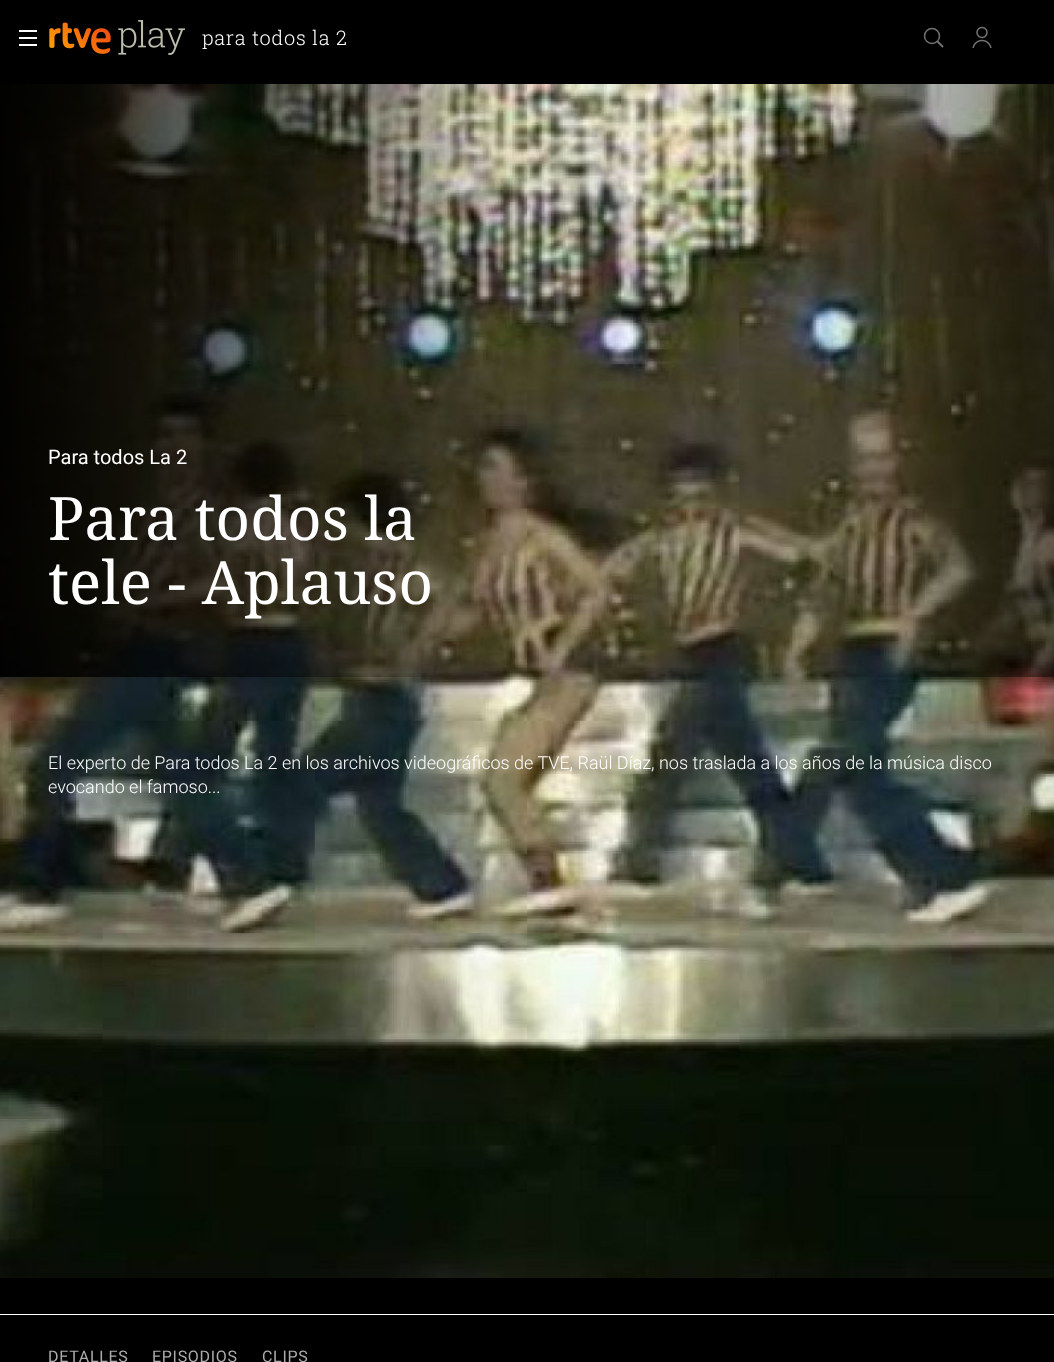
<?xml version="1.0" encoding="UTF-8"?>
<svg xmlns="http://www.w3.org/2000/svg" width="1054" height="1362">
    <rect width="100%" height="100%" fill="#000000"/>
    <rect x="19" y="30" width="18" height="2" fill="#FFFFFF"/>
    <rect x="19" y="37" width="18" height="2" fill="#FFFFFF"/>
    <rect x="19" y="44" width="18" height="2" fill="#FFFFFF"/>
    <image x="49" y="22" width="62" height="32" href="img_01.png"/>
    <image x="118" y="20" width="67" height="35" href="img_02.png"/>
    <text x="202" y="45" font-family="Roboto Slab" font-size="20" font-weight="300" letter-spacing="0.7" fill="#FFFFFF">para todos la 2</text>
    <circle cx="932" cy="36" r="7.5" fill="none" stroke="#727272" stroke-width="1.5"/>
    <path d="M 937.5 41.5 L 943 47" fill="none" stroke="#727272" stroke-width="2"/>
    <image x="972" y="26" width="20" height="22" href="img_03.png"/>
    <image x="0" y="84" width="1054" height="1194" href="img_04.png"/>
    <text x="48" y="464" font-family="Roboto" font-size="20" fill="#FFFFFF">Para todos La 2</text>
    <text font-family="Noto Serif" font-size="60" fill="#FFFFFF">
        <tspan x="48" y="540">Para todos la</tspan>
        <tspan x="48" y="604">tele - Aplauso</tspan>
    </text>
    <text font-family="Roboto" font-size="18" font-weight="300" fill="#FFFFFF">
        <tspan x="48" y="769">El experto de Para todos La 2 en los archivos videográficos de TVE, Raül Díaz, nos traslada a los años de la música disco</tspan>
        <tspan x="48" y="793">evocando el famoso...</tspan>
    </text>
    <rect x="0" y="1314" width="1054" height="1" fill="#FFFFFF"/>
    <text x="48" y="1362" font-family="Roboto" font-size="16" letter-spacing="0.7" fill="#ABABAB">DETALLES</text>
    <text x="152" y="1362" font-family="Roboto" font-size="16" letter-spacing="0.7" fill="#ABABAB">EPISODIOS</text>
    <text x="262" y="1362" font-family="Roboto" font-size="16" letter-spacing="0.7" fill="#ABABAB">CLIPS</text>
</svg>
